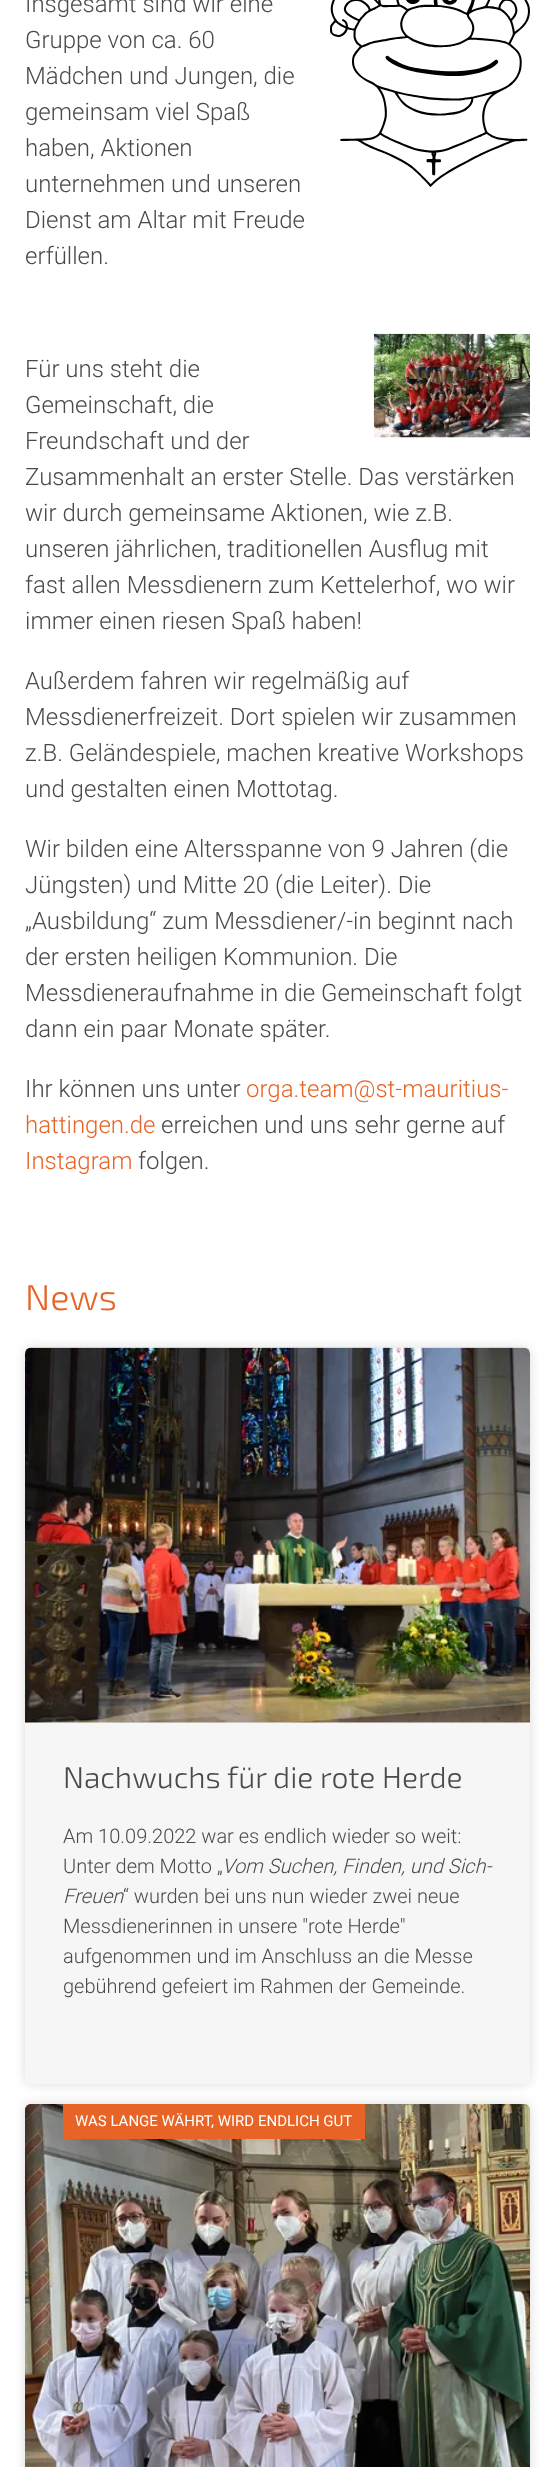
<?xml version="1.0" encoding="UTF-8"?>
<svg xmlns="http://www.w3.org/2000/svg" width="555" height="2467">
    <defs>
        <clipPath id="clip1"><path d="M 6 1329 H 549 V 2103 H 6 Z M 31 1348 H 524 C 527.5 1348 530 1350.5 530 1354 V 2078 C 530 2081.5 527.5 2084 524 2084 H 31 C 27.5 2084 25 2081.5 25 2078 V 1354 C 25 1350.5 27.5 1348 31 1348 Z" clip-rule="evenodd"/></clipPath>
        <filter id="blur1" x="-50%" y="-200%" width="200%" height="500%"><feGaussianBlur stdDeviation="6"/></filter>
    </defs>
    <rect width="100%" height="100%" fill="#FFFFFF"/>
    <text font-family="Roboto" font-size="24" font-weight="300" fill="#4A4A4A">
        <tspan x="25" y="12">Insgesamt sind wir eine</tspan>
        <tspan x="25" y="48">Gruppe von ca. 60</tspan>
        <tspan x="25" y="84">Mädchen und Jungen, die</tspan>
        <tspan x="25" y="120">gemeinsam viel Spaß</tspan>
        <tspan x="25" y="156">haben, Aktionen</tspan>
        <tspan x="25" y="192">unternehmen und unseren</tspan>
        <tspan x="25" y="228">Dienst am Altar mit Freude</tspan>
        <tspan x="25" y="264">erfüllen.</tspan>
    </text>
    <image x="330" y="0" width="200" height="187" href="img_01.png"/>
    <image x="373" y="333" width="157" height="105" href="img_02.png"/>
    <text font-family="Roboto" font-size="24" font-weight="300" fill="#4A4A4A">
        <tspan x="25" y="377">Für uns steht die</tspan>
        <tspan x="25" y="413">Gemeinschaft, die</tspan>
        <tspan x="25" y="449">Freundschaft und der</tspan>
        <tspan x="25" y="485">Zusammenhalt an erster Stelle. Das verstärken</tspan>
        <tspan x="25" y="521">wir durch gemeinsame Aktionen, wie z.B.</tspan>
        <tspan x="25" y="557">unseren jährlichen, traditionellen Ausflug mit</tspan>
        <tspan x="25" y="593">fast allen Messdienern zum Kettelerhof, wo wir</tspan>
        <tspan x="25" y="629">immer einen riesen Spaß haben!</tspan>
    </text>
    <text font-family="Roboto" font-size="24" font-weight="300" fill="#4A4A4A">
        <tspan x="25" y="689">Außerdem fahren wir regelmäßig auf</tspan>
        <tspan x="25" y="725">Messdienerfreizeit. Dort spielen wir zusammen</tspan>
        <tspan x="25" y="761">z.B. Geländespiele, machen kreative Workshops</tspan>
        <tspan x="25" y="797">und gestalten einen Mottotag.</tspan>
    </text>
    <text font-family="Roboto" font-size="24" font-weight="300" fill="#4A4A4A">
        <tspan x="25" y="857">Wir bilden eine Altersspanne von 9 Jahren (die</tspan>
        <tspan x="25" y="893">Jüngsten) und Mitte 20 (die Leiter). Die</tspan>
        <tspan x="25" y="929">„Ausbildung“ zum Messdiener/-in beginnt nach</tspan>
        <tspan x="25" y="965">der ersten heiligen Kommunion. Die</tspan>
        <tspan x="25" y="1001">Messdieneraufnahme in die Gemeinschaft folgt</tspan>
        <tspan x="25" y="1037">dann ein paar Monate später.</tspan>
    </text>
    <text x="25" y="1097" font-family="Roboto" font-size="24" font-weight="300" fill="#4A4A4A">Ihr können uns unter</text>
    <text x="246" y="1097" font-family="Roboto" font-size="24" font-weight="300" fill="#E86426">orga.team@st-mauritius-</text>
    <text x="25" y="1133" font-family="Roboto" font-size="24" font-weight="300" fill="#E86426">hattingen.de</text>
    <text x="161" y="1133" font-family="Roboto" font-size="24" font-weight="300" fill="#4A4A4A">erreichen und uns sehr gerne auf</text>
    <text x="25" y="1169" font-family="Roboto" font-size="24" font-weight="300" fill="#E86426">Instagram</text>
    <text x="138" y="1169" font-family="Roboto" font-size="24" font-weight="300" fill="#4A4A4A">folgen.</text>
    <text x="25" y="1310" font-family="'Exo 2'" font-size="36" font-weight="300" fill="#E86426">News</text>
    <g clip-path="url(#clip1)">
        <rect x="25" y="1348" width="505" height="736" rx="6" fill="#DBDBDB" filter="url(#blur1)"/>
    </g>
    <rect x="25" y="1348" width="505" height="736" rx="6" fill="#F5F5F5" fill-opacity="0.85"/>
    <image x="25" y="1347" width="505" height="376" href="img_03.png"/>
    <text x="63" y="1788" font-family="'Exo 2'" font-size="30" font-weight="300" fill="#4A4A4A">Nachwuchs für die rote Herde</text>
    <text font-family="Roboto" font-size="20" font-weight="300" fill="#4A4A4A">
        <tspan x="63" y="1843">Am 10.09.2022 war es endlich wieder so weit:</tspan>
        <tspan x="63" y="1873">Unter dem Motto „</tspan>
    </text>
    <text x="222" y="1873" font-family="Roboto" font-size="20" font-weight="300" font-style="italic" fill="#4A4A4A">Vom Suchen, Finden, und Sich-</text>
    <text x="63" y="1903" font-family="Roboto" font-size="20" font-weight="300" font-style="italic" fill="#4A4A4A">Freuen</text>
    <text x="123" y="1903" font-family="Roboto" font-size="20" font-weight="300" fill="#4A4A4A">“ wurden bei uns nun wieder zwei neue</text>
    <text font-family="Roboto" font-size="20" font-weight="300" fill="#4A4A4A">
        <tspan x="63" y="1933">Messdienerinnen in unsere "rote Herde"</tspan>
        <tspan x="63" y="1963">aufgenommen und im Anschluss an die Messe</tspan>
        <tspan x="63" y="1993">gebührend gefeiert im Rahmen der Gemeinde.</tspan>
    </text>
    <rect x="25" y="2104" width="505" height="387" rx="6" fill="#DBDBDB" filter="url(#blur1)"/>
    <image x="25" y="2104" width="505" height="363" href="img_04.png"/>
    <rect x="63" y="2104" width="302" height="35" fill="#E86426"/>
    <text x="75" y="2126" font-family="Roboto" font-size="15" fill="#FFFFFF">WAS LANGE WÄHRT, WIRD ENDLICH GUT</text>
</svg>
